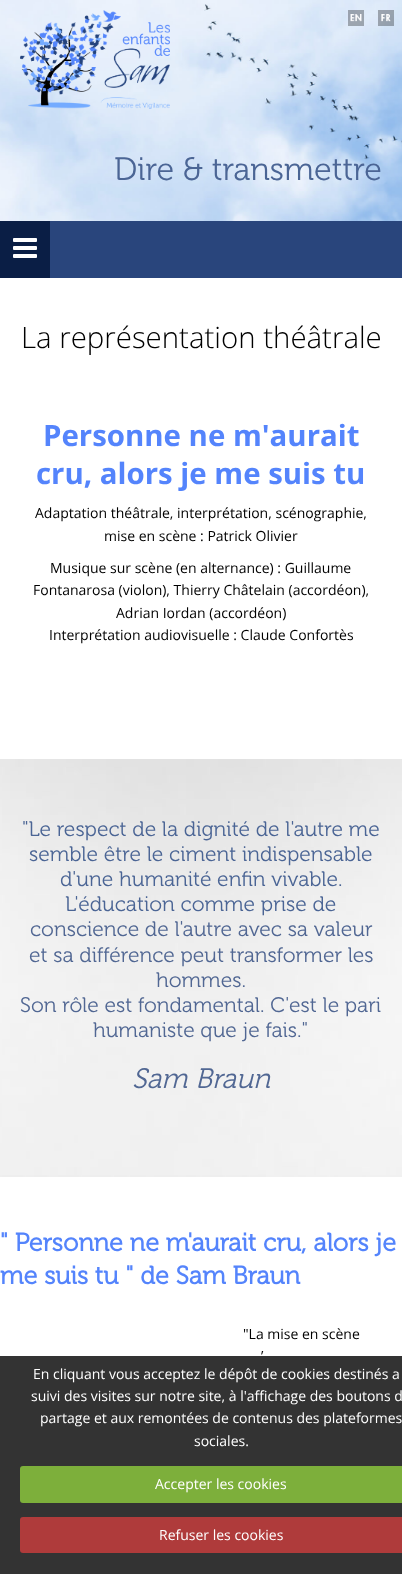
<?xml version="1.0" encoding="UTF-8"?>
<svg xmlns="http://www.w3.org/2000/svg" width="402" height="1574">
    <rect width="100%" height="100%" fill="#FFFFFF"/>
    <image x="0" y="0" width="402" height="221" href="img_03.png"/>
    <image x="348" y="10" width="16" height="16" href="img_01.png"/>
    <image x="378" y="10" width="16" height="16" href="img_02.png"/>
    <image x="20" y="10" width="150" height="99" href="img_04.png"/>
    <text x="114" y="180" font-family="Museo" font-size="32.25" font-weight="300" fill="#4B6595">Dire &amp; transmettre</text>
    <rect x="50" y="221" width="352" height="57" fill="#29457C"/>
    <rect x="0" y="221" width="50" height="57" fill="#0A1E45"/>
    <image x="13" y="238" width="24" height="20" href="img_05.png"/>
    <text x="21" y="348" font-family="Open Sans" font-size="29.4" font-weight="300" fill="#000000">La représentation théâtrale</text>
    <text x="43" y="446" font-family="Open Sans" font-size="29.4" font-weight="700" fill="#5484FC">Personne ne m'aurait</text>
    <text x="36" y="484" font-family="Open Sans" font-size="29.4" font-weight="700" fill="#5484FC">cru, alors je me suis tu</text>
    <text x="35" y="518" font-family="Open Sans" font-size="14" fill="#000000">Adaptation théâtrale, interprétation, scénographie,</text>
    <text x="104" y="541" font-family="Open Sans" font-size="14" fill="#000000">mise en scène : Patrick Olivier</text>
    <text x="50" y="573" font-family="Open Sans" font-size="14" fill="#000000">Musique sur scène (en alternance) : Guillaume</text>
    <text x="33" y="595" font-family="Open Sans" font-size="14" fill="#000000">Fontanarosa (violon), Thierry Châtelain (accordéon),</text>
    <text x="116" y="618" font-family="Open Sans" font-size="14" fill="#000000">Adrian Iordan (accordéon)</text>
    <text x="49" y="640" font-family="Open Sans" font-size="14" fill="#000000">Interprétation audiovisuelle : Claude Confortès</text>
    <image x="0" y="759" width="402" height="418" href="img_06.png"/>
    <text x="22" y="836" font-family="Museo" font-size="21" font-weight="300" fill="#4B6595">"Le respect de la dignité de l'autre me</text>
    <text x="29" y="861" font-family="Museo" font-size="21" font-weight="300" fill="#4B6595">semble être le ciment indispensable</text>
    <text x="60" y="886" font-family="Museo" font-size="21" font-weight="300" fill="#4B6595">d'une humanité enfin vivable.</text>
    <text x="65" y="911" font-family="Museo" font-size="21" font-weight="300" fill="#4B6595">L'éducation comme prise de</text>
    <text x="30" y="936" font-family="Museo" font-size="21" font-weight="300" fill="#516793">conscience de l'autre avec sa valeur</text>
    <text x="29" y="962" font-family="Museo" font-size="21" font-weight="300" fill="#516793">et sa différence peut transformer les</text>
    <text x="156" y="987" font-family="Museo" font-size="21" font-weight="300" fill="#516793">hommes.</text>
    <text x="20" y="1012" font-family="Museo" font-size="21" font-weight="300" fill="#516793">Son rôle est fondamental. C'est le pari</text>
    <text x="93" y="1037" font-family="Museo" font-size="21" font-weight="300" fill="#516793">humaniste que je fais."</text>
    <text x="132" y="1088" font-family="Museo" font-size="28" font-weight="300" font-style="italic" fill="#516793">Sam Braun</text>
    <text font-family="Museo" font-size="25.25" font-weight="700" fill="#5484FC">
        <tspan x="0" y="1251">" Personne ne m'aurait cru, alors je</tspan>
        <tspan x="0" y="1284">me suis tu " de Sam Braun</tspan>
    </text>
    <text x="243" y="1339" font-family="Open Sans" font-size="14" fill="#000000">"La mise en scène</text>
    <text x="261" y="1361" font-family="Open Sans" font-size="14" fill="#000000">’</text>
    <rect x="0" y="1356" width="402" height="218" fill="#000000" fill-opacity="0.8"/>
    <text x="33" y="1379" font-family="Open Sans" font-size="14" fill="#FFFFFF">En cliquant vous acceptez le dépôt de cookies destinés a</text>
    <text x="31" y="1401" font-family="Open Sans" font-size="14" fill="#FFFFFF">suivi des visites sur notre site, à l'affichage des boutons d</text>
    <text x="40" y="1423" font-family="Open Sans" font-size="14" fill="#FFFFFF">partage et aux remontées de contenus des plateformes</text>
    <text x="194" y="1446" font-family="Open Sans" font-size="14" fill="#FFFFFF">sociales.</text>
    <rect x="20" y="1466" width="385" height="37" rx="3" fill="#7DAF3B"/>
    <text x="155" y="1489" font-family="Open Sans" font-size="14" fill="#FFFFFF">Accepter les cookies</text>
    <rect x="20" y="1517" width="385" height="36" rx="3" fill="#AF3B3B"/>
    <text x="159" y="1540" font-family="Open Sans" font-size="14" fill="#FFFFFF">Refuser les cookies</text>
</svg>
